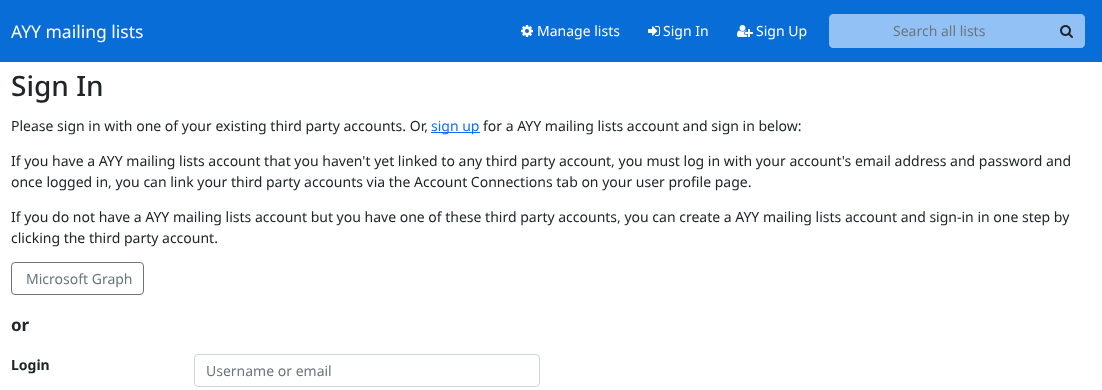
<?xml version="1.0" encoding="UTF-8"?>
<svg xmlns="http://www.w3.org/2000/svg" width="1102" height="390">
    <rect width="100%" height="100%" fill="#FFFFFF"/>
    <rect x="0" y="0" width="1102" height="62" fill="#086DD7"/>
    <text x="11" y="38" font-family="Noto Sans" font-size="17.5" fill="#FFFFFF">AYY mailing lists</text>
    <image x="521" y="25" width="12" height="12" href="img_01.png"/>
    <text x="537" y="36" font-family="Noto Sans" font-size="14" fill="#FFFFFF">Manage lists</text>
    <image x="648" y="26" width="12" height="10" href="img_02.png"/>
    <text x="663" y="36" font-family="Noto Sans" font-size="14" fill="#FFFFFF">Sign In</text>
    <image x="737" y="25" width="16" height="12" href="img_03.png"/>
    <text x="756" y="36" font-family="Noto Sans" font-size="14" fill="#FFFFFF">Sign Up</text>
    <path d="M 833 14 H 1050 V 48 H 833 C 831 48 829 46 829 44 V 18 C 829 16 831 14 833 14 Z" fill="#92C2F5"/>
    <text x="893" y="36" font-family="Noto Sans" font-size="14" fill="#6C757D">Search all lists</text>
    <path d="M 1049 14 H 1081 C 1083 14 1085 16 1085 18 V 44 C 1085 46 1083 48 1081 48 H 1049 Z" fill="#92C2F5"/>
    <image x="1060" y="25" width="13" height="13" href="img_04.png"/>
    <text x="11" y="96" font-family="Noto Sans" font-size="28" font-weight="500" fill="#212529">Sign In</text>
    <text x="11" y="131" font-family="Noto Sans" font-size="14" fill="#212529">Please sign in with one of your existing third party accounts. Or,</text>
    <rect x="431" y="132" width="49" height="1" fill="#0D6EFD"/>
    <text x="431" y="131" font-family="Noto Sans" font-size="14" fill="#0D6EFD">sign up</text>
    <text x="483" y="131" font-family="Noto Sans" font-size="14" fill="#212529">for a AYY mailing lists account and sign in below:</text>
    <text font-family="Noto Sans" font-size="14" fill="#212529">
        <tspan x="11" y="166">If you have a AYY mailing lists account that you haven't yet linked to any third party account, you must log in with your account's email address and password and</tspan>
        <tspan x="11" y="187">once logged in, you can link your third party accounts via the Account Connections tab on your user profile page.</tspan>
    </text>
    <text font-family="Noto Sans" font-size="14" fill="#212529">
        <tspan x="11" y="222">If you do not have a AYY mailing lists account but you have one of these third party accounts, you can create a AYY mailing lists account and sign-in in one step by</tspan>
        <tspan x="11" y="243">clicking the third party account.</tspan>
    </text>
    <rect x="11.5" y="262.5" width="132" height="32" rx="3.5" fill="none" stroke="#6C757D"/>
    <text x="26" y="284" font-family="Noto Sans" font-size="14" fill="#6C757D">Microsoft Graph</text>
    <text x="11" y="331" font-family="Noto Sans" font-size="17" font-weight="700" fill="#212529">or</text>
    <text x="11" y="370" font-family="Noto Sans" font-size="14" font-weight="700" fill="#212529">Login</text>
    <rect x="194.5" y="354.5" width="345" height="32" rx="3.5" fill="none" stroke="#CED4DA"/>
    <text x="206" y="376" font-family="Noto Sans" font-size="14" fill="#6C757D">Username or email</text>
</svg>
